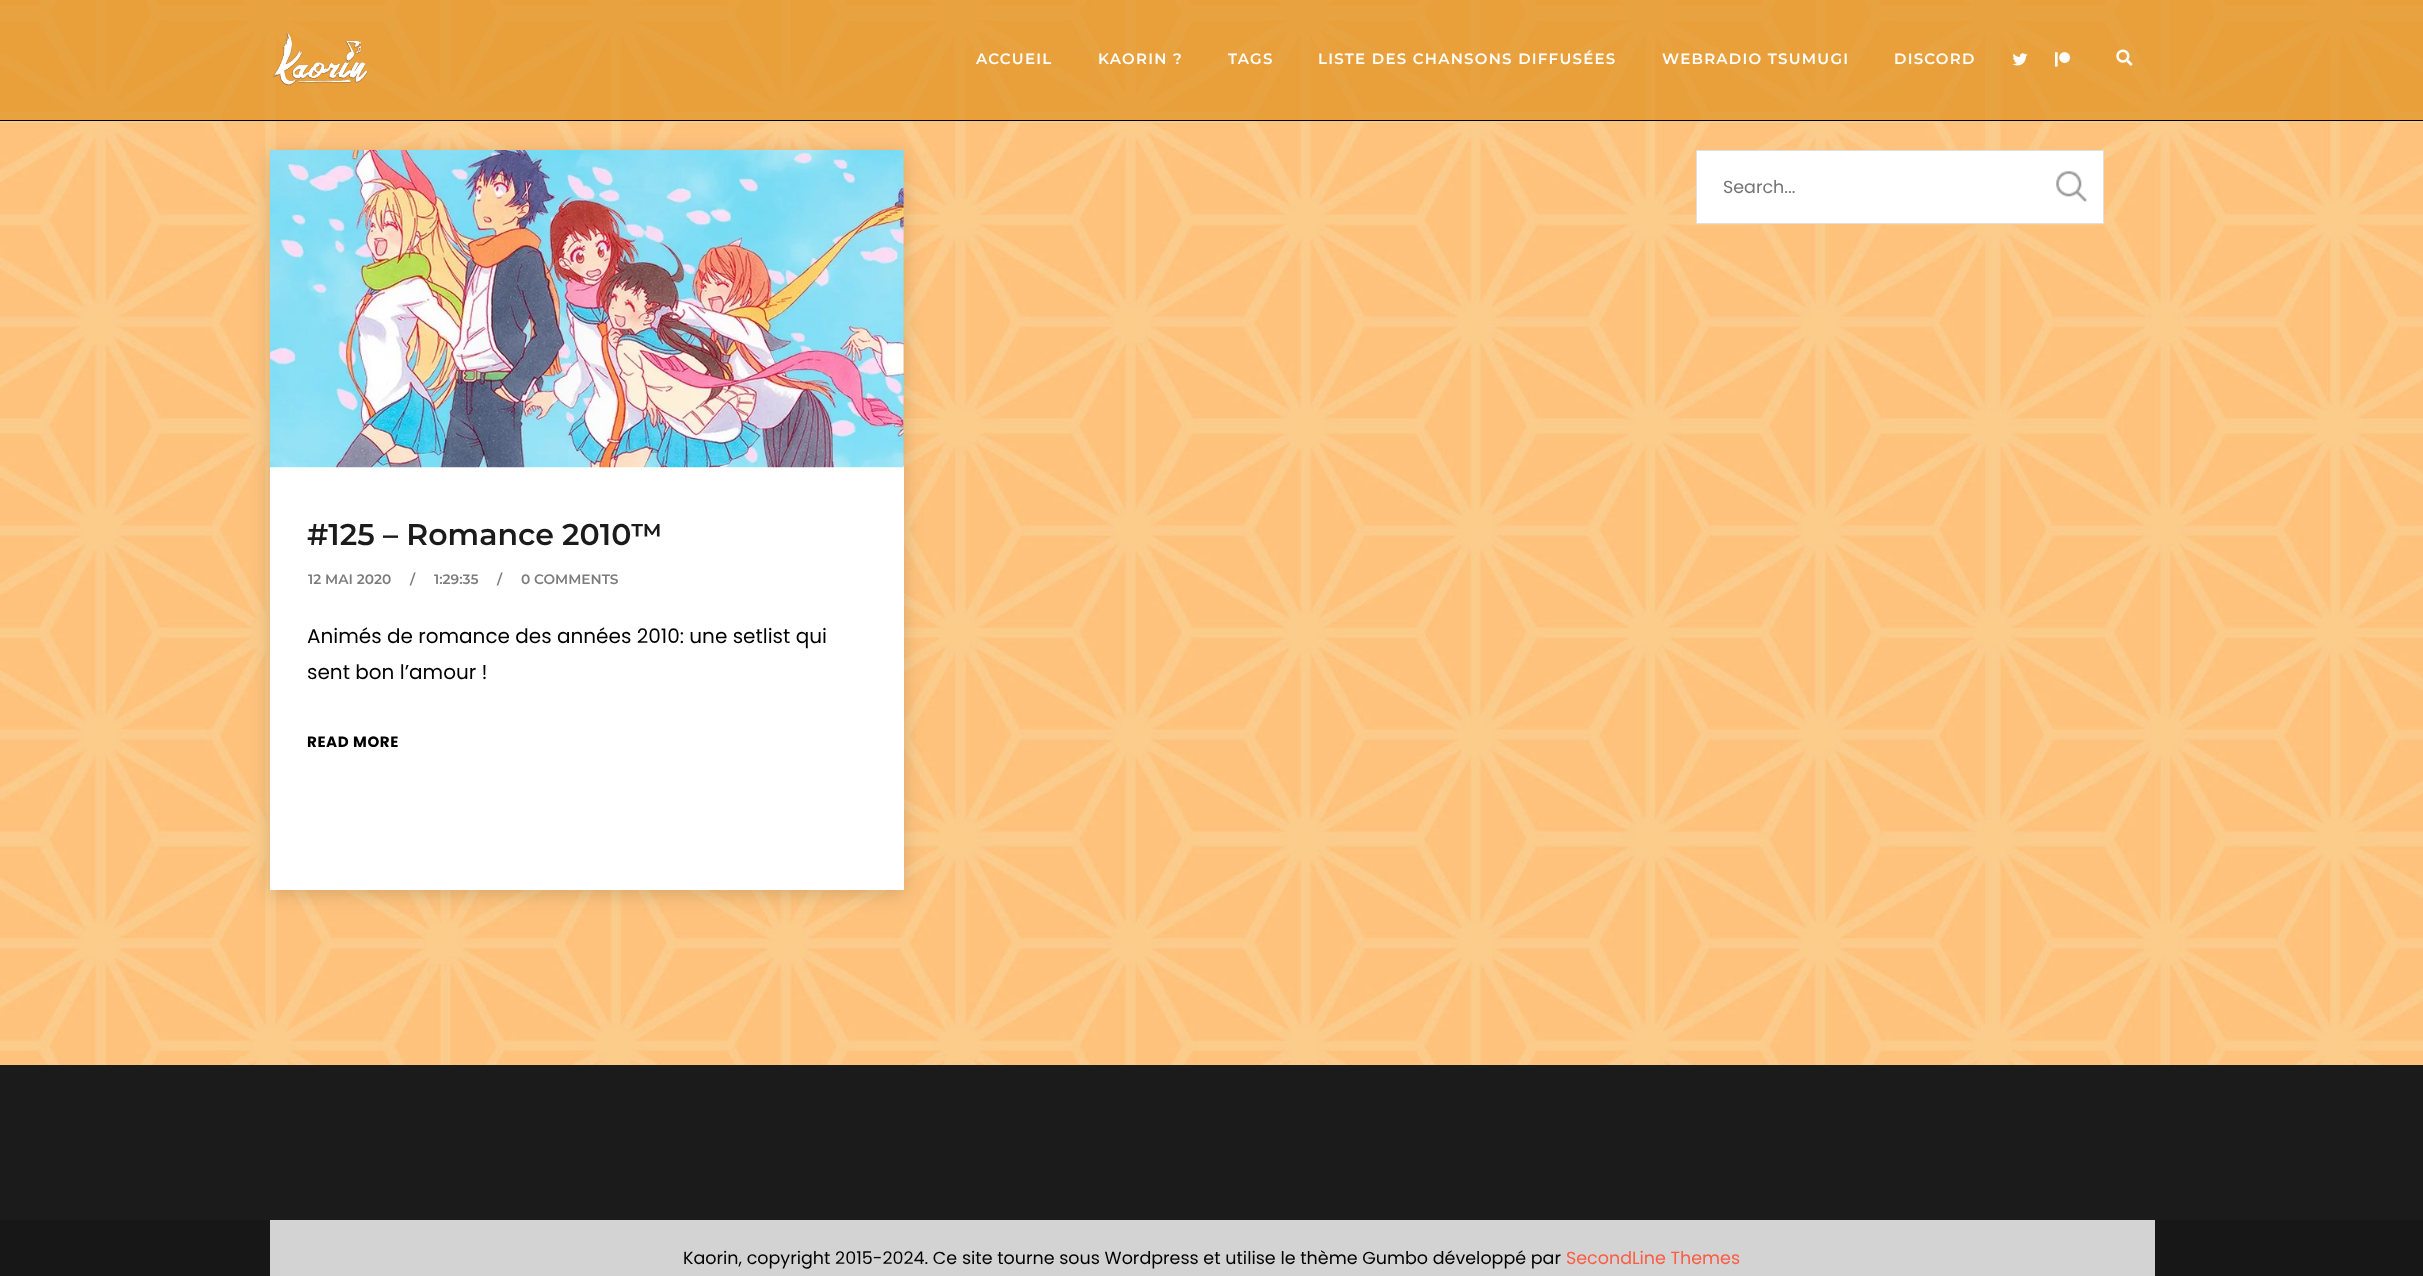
<?xml version="1.0" encoding="UTF-8"?>
<svg xmlns="http://www.w3.org/2000/svg" width="2423" height="1276">
    <defs>
        <filter id="blur1" x="-50%" y="-200%" width="200%" height="500%"><feGaussianBlur stdDeviation="9.5"/></filter>
    </defs>
    <rect width="100%" height="100%" fill="#FFFFFF"/>
    <image x="0" y="0" width="2423" height="1065" href="img_01.png"/>
    <rect x="0" y="0" width="2423" height="120" fill="#DD8E18" fill-opacity="0.65"/>
    <image x="272" y="32" width="96" height="54" href="img_02.png"/>
    <text x="976" y="64" font-family="Montserrat" font-size="15" font-weight="100" letter-spacing="1.25" fill="#FFFFFF">ACCUEIL</text>
    <text x="1098" y="64" font-family="Montserrat" font-size="15" font-weight="100" letter-spacing="1.25" fill="#FFFFFF">KAORIN ?</text>
    <text x="1228" y="64" font-family="Montserrat" font-size="15" font-weight="100" letter-spacing="1.25" fill="#FFFFFF">TAGS</text>
    <text x="1318" y="64" font-family="Montserrat" font-size="15" font-weight="100" letter-spacing="1.25" fill="#FFFFFF">LISTE DES CHANSONS DIFFUSÉES</text>
    <text x="1662" y="64" font-family="Montserrat" font-size="15" font-weight="100" letter-spacing="1.25" fill="#FFFFFF">WEBRADIO TSUMUGI</text>
    <text x="1894" y="64" font-family="Montserrat" font-size="15" font-weight="100" letter-spacing="1.25" fill="#FFFFFF">DISCORD</text>
    <image x="2012" y="53" width="16" height="13" href="img_03.png"/>
    <image x="2055" y="52" width="15" height="15" href="img_04.png"/>
    <image x="2116" y="49" width="17" height="17" href="img_05.png"/>
    <rect x="0" y="120" width="2423" height="1" fill="#000000"/>
    <rect x="1697" y="151" width="406" height="72" fill="#FFFFFF"/>
    <image x="2056" y="171" width="31" height="31" href="img_06.png"/>
    <rect x="1696.5" y="150.5" width="407" height="73" fill="none" stroke="#E0E0E0"/>
    <text x="1723" y="193" font-family="Poppins" font-size="17.5" fill="#757575">Search...</text>
    <rect x="270" y="154" width="634" height="740" fill="#000000" fill-opacity="0.15" filter="url(#blur1)"/>
    <rect x="270" y="466" width="634" height="424" fill="#FFFFFF"/>
    <image x="270" y="150" width="634" height="318" href="img_07.png"/>
    <text x="307" y="545" font-family="Montserrat" font-size="30" font-weight="100" fill="#1B1B1B">#125 – Romance 2010™</text>
    <text x="308" y="584" font-family="Montserrat" font-size="13.75" font-weight="100" fill="#7C7C7C">12 MAI 2020</text>
    <text x="410" y="584" font-family="Montserrat" font-size="13.75" font-weight="100" fill="#7C7C7C">/</text>
    <text x="434" y="584" font-family="Montserrat" font-size="13.75" font-weight="100" fill="#7C7C7C">1:29:35</text>
    <text x="497" y="584" font-family="Montserrat" font-size="13.75" font-weight="100" fill="#7C7C7C">/</text>
    <text x="521" y="584" font-family="Montserrat" font-size="13.75" font-weight="100" fill="#7C7C7C">0 COMMENTS</text>
    <text font-family="Poppins" font-size="20" fill="#000000">
        <tspan x="307" y="643">Animés de romance des années 2010: une setlist qui</tspan>
        <tspan x="307" y="679">sent bon l’amour !</tspan>
    </text>
    <text x="307" y="747" font-family="Poppins" font-size="15" font-weight="700" letter-spacing="0.6" fill="#000000">READ MORE</text>
    <rect x="0" y="1065" width="2423" height="155" fill="#1B1B1B"/>
    <rect x="0" y="1220" width="2423" height="56" fill="#171717"/>
    <rect x="270" y="1220" width="1885" height="56" fill="#D3D3D3"/>
    <text x="683" y="1264" font-family="Poppins" font-size="17.5" fill="#000000">Kaorin, copyright 2015-2024. Ce site tourne sous Wordpress et utilise le thème Gumbo développé par</text>
    <text x="1566" y="1264" font-family="Poppins" font-size="17.5" fill="#FD5B44">SecondLine Themes</text>
</svg>
